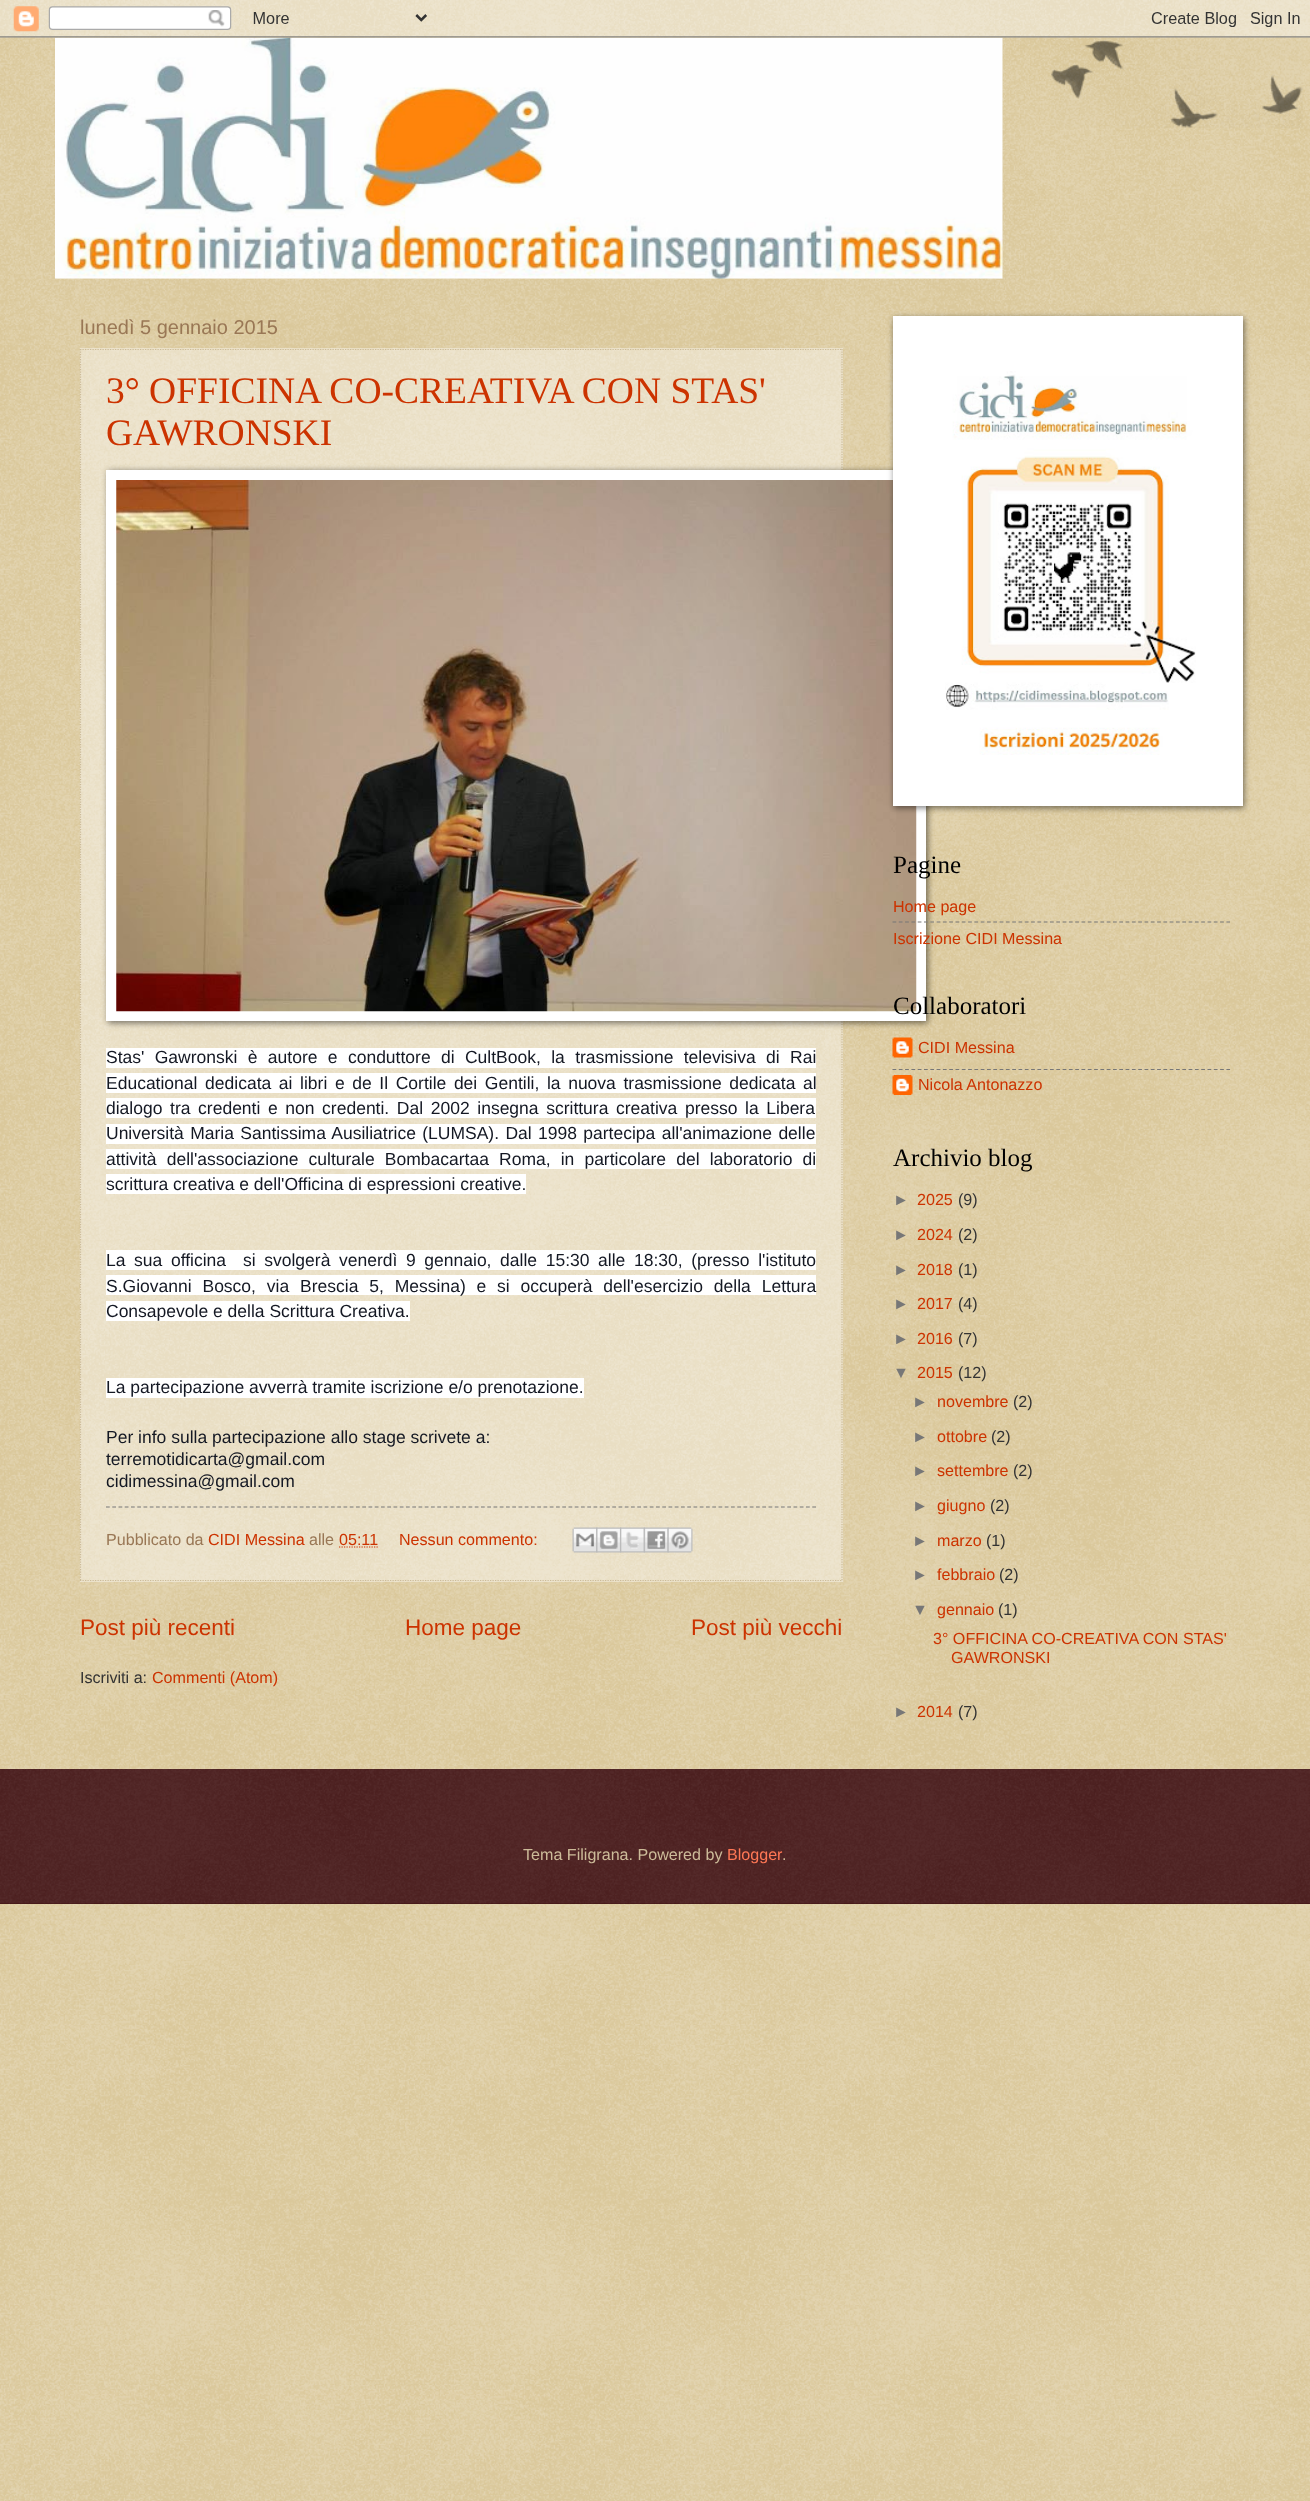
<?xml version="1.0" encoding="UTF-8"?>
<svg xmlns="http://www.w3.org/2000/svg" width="1310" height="2501">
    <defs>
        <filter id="blur1" x="-50%" y="-200%" width="200%" height="500%"><feGaussianBlur stdDeviation="3"/></filter>
    </defs>
    <rect width="100%" height="100%" fill="#C0A154"/>
    <image x="0" y="0" width="1310" height="2501" href="img_01.png"/>
    <image x="55" y="37" width="948" height="242" href="img_04.png"/>
    <image x="0" y="0" width="1310" height="38" href="img_02.png"/>
    <image x="1051" y="40" width="252" height="88" href="img_03.png"/>
    <text x="80" y="334" font-family="Liberation Sans" font-size="20" fill="#997755">lunedì 5 gennaio 2015</text>
    <rect x="80" y="348" width="763" height="1234" fill="#FFFFFF" fill-opacity="0.4"/>
    <path d="M 80 349.5 H 842.5" fill="none" stroke="#CCBB99" stroke-width="1.2" stroke-dasharray="1.25 1.25"/>
    <path d="M 842 349 V 1581" fill="none" stroke="#CCBB99" stroke-width="1.2" stroke-dasharray="1.25 1.25"/>
    <path d="M 80 1580.5 H 842.5" fill="none" stroke="#CCBB99" stroke-width="1.2" stroke-dasharray="1.25 1.25"/>
    <path d="M 80.5 349 V 1581" fill="none" stroke="#CCBB99" stroke-width="1.2" stroke-dasharray="1.25 1.25"/>
    <text font-family="Liberation Serif" font-size="37.5" fill="#CC3300">
        <tspan x="106" y="403">3° OFFICINA CO-CREATIVA CON STAS'</tspan>
        <tspan x="106" y="445">GAWRONSKI</tspan>
    </text>
    <rect x="108" y="471" width="820" height="552" fill="#000000" fill-opacity="0.5" filter="url(#blur1)"/>
    <rect x="106" y="470" width="820" height="551" fill="#FFFFFF"/>
    <image x="116" y="480" width="801" height="532" href="img_05.png"/>
    <rect x="106" y="1048" width="710" height="20" fill="#FFFFFF"/>
    <text x="106" y="1063" word-spacing="5.5" font-family="Liberation Sans" font-size="17.5" fill="#141823">Stas' Gawronski è autore e conduttore di CultBook, la trasmissione televisiva di Rai</text>
    <rect x="106" y="1073" width="710" height="20" fill="#FFFFFF"/>
    <text x="106" y="1089" word-spacing="2.75" font-family="Liberation Sans" font-size="17.5" fill="#141823">Educational dedicata ai libri e de Il Cortile dei Gentili, la nuova trasmissione dedicata al</text>
    <rect x="106" y="1098" width="710" height="20" fill="#FFFFFF"/>
    <text x="106" y="1114" word-spacing="2.75" font-family="Liberation Sans" font-size="17.5" fill="#141823">dialogo tra credenti e non credenti. Dal 2002 insegna scrittura creativa presso la Libera</text>
    <rect x="106" y="1124" width="710" height="20" fill="#FFFFFF"/>
    <text x="106" y="1139" word-spacing="1.5" font-family="Liberation Sans" font-size="17.5" fill="#141823">Università Maria Santissima Ausiliatrice (LUMSA). Dal 1998 partecipa all'animazione delle</text>
    <rect x="106" y="1149" width="710" height="20" fill="#FFFFFF"/>
    <text x="106" y="1165" word-spacing="5.25" font-family="Liberation Sans" font-size="17.5" fill="#141823">attività dell'associazione culturale Bombacartaa Roma, in particolare del laboratorio di</text>
    <rect x="106" y="1174" width="420" height="20" fill="#FFFFFF"/>
    <text x="106" y="1190" font-family="Liberation Sans" font-size="17.5" fill="#141823">scrittura creativa e dell'Officina di espressioni creative.</text>
    <rect x="106" y="1250" width="710" height="20" fill="#FFFFFF"/>
    <text x="106" y="1266" word-spacing="3.75" font-family="Liberation Sans" font-size="17.5" fill="#141823">La sua officina</text>
    <text x="243" y="1266" word-spacing="3.75" font-family="Liberation Sans" font-size="17.5" fill="#141823">si svolgerà venerdì 9 gennaio, dalle 15:30 alle 18:30, (presso l'istituto</text>
    <rect x="106" y="1275" width="710" height="20" fill="#FFFFFF"/>
    <text x="106" y="1292" word-spacing="6" font-family="Liberation Sans" font-size="17.5" fill="#141823">S.Giovanni Bosco, via Brescia 5, Messina) e</text>
    <text x="497" y="1292" word-spacing="6" font-family="Liberation Sans" font-size="17.5" fill="#141823">si occuperà dell'esercizio della Lettura</text>
    <rect x="106" y="1301" width="304" height="20" fill="#FFFFFF"/>
    <text x="106" y="1317" font-family="Liberation Sans" font-size="17.5" fill="#141823">Consapevole e della Scrittura Creativa.</text>
    <rect x="106" y="1378" width="478" height="20" fill="#FFFFFF"/>
    <text x="106" y="1393" font-family="Liberation Sans" font-size="17.5" fill="#141823">La partecipazione avverrà tramite iscrizione e/o prenotazione.</text>
    <text font-family="Liberation Sans" font-size="17.5" fill="#141823">
        <tspan x="106" y="1443">Per info sulla partecipazione allo stage scrivete a:</tspan>
        <tspan x="106" y="1465">terremotidicarta@gmail.com</tspan>
        <tspan x="106" y="1487">cidimessina@gmail.com</tspan>
    </text>
    <path d="M 106 1507 H 816" fill="none" stroke="#777777" stroke-width="1.2" stroke-dasharray="3.75 2.5"/>
    <text x="106" y="1545" font-family="Liberation Sans" font-size="16.1" fill="#997755">Pubblicato da</text>
    <text x="208" y="1545" font-family="Liberation Sans" font-size="16.1" fill="#CC3300">CIDI Messina</text>
    <text x="309" y="1545" font-family="Liberation Sans" font-size="16.1" fill="#997755">alle</text>
    <text x="339" y="1545" font-family="Liberation Sans" font-size="16.1" fill="#CC3300">05:11</text>
    <path d="M 339 1547 H 378" fill="none" stroke="#CC3300" stroke-width="1.2" stroke-dasharray="1.25 1.25"/>
    <text x="399" y="1545" font-family="Liberation Sans" font-size="16.1" fill="#CC3300">Nessun commento:</text>
    <image x="572" y="1527" width="26" height="26" href="img_06.png"/>
    <image x="596" y="1527" width="26" height="26" href="img_07.png"/>
    <image x="620" y="1527" width="25" height="26" href="img_08.png"/>
    <image x="643" y="1527" width="26" height="26" href="img_09.png"/>
    <image x="667" y="1527" width="26" height="26" href="img_10.png"/>
    <text x="80" y="1635" font-family="Liberation Sans" font-size="22.5" fill="#CC3300">Post più recenti</text>
    <text x="405" y="1635" font-family="Liberation Sans" font-size="22.5" fill="#CC3300">Home page</text>
    <text x="691" y="1635" font-family="Liberation Sans" font-size="22.5" fill="#CC3300">Post più vecchi</text>
    <text x="80" y="1683" font-family="Liberation Sans" font-size="16.1" fill="#333333">Iscriviti a:</text>
    <text x="152" y="1683" font-family="Liberation Sans" font-size="16.1" fill="#CC3300">Commenti (Atom)</text>
    <rect x="894" y="318" width="350" height="490" fill="#000000" fill-opacity="0.5" filter="url(#blur1)"/>
    <rect x="893" y="316" width="350" height="490" fill="#FFFFFF"/>
    <image x="945" y="371" width="251" height="384" href="img_11.png"/>
    <text x="893" y="873" font-family="Liberation Serif" font-size="25" fill="#000000">Pagine</text>
    <text x="893" y="912" font-family="Liberation Sans" font-size="16.1" fill="#CC3300">Home page</text>
    <path d="M 892.5 922 H 1230" fill="none" stroke="#777777" stroke-width="1.2" stroke-dasharray="3.75 2.55"/>
    <text x="893" y="944" font-family="Liberation Sans" font-size="16.1" fill="#CC3300">Iscrizione CIDI Messina</text>
    <text x="893" y="1014" font-family="Liberation Serif" font-size="25" fill="#000000">Collaboratori</text>
    <image x="892" y="1037" width="21" height="21" href="img_12.png"/>
    <text x="918" y="1053" font-family="Liberation Sans" font-size="16.1" fill="#CC3300">CIDI Messina</text>
    <path d="M 892.5 1069.5 H 1230" fill="none" stroke="#777777" stroke-width="1.2" stroke-dasharray="3.75 2.55"/>
    <image x="892" y="1075" width="21" height="20" href="img_13.png"/>
    <text x="918" y="1090" font-family="Liberation Sans" font-size="16.1" fill="#CC3300">Nicola Antonazzo</text>
    <text x="893" y="1166" font-family="Liberation Serif" font-size="25" fill="#000000">Archivio blog</text>
    <text x="893" y="1205" font-family="Liberation Sans" font-size="16.1" fill="#777777">►</text>
    <text x="917" y="1205" font-family="Liberation Sans" font-size="16.1" fill="#CC3300">2025</text>
    <text x="958" y="1205" font-family="Liberation Sans" font-size="16.1" fill="#333333">(9)</text>
    <text x="893" y="1240" font-family="Liberation Sans" font-size="16.1" fill="#777777">►</text>
    <text x="917" y="1240" font-family="Liberation Sans" font-size="16.1" fill="#CC3300">2024</text>
    <text x="958" y="1240" font-family="Liberation Sans" font-size="16.1" fill="#333333">(2)</text>
    <text x="893" y="1275" font-family="Liberation Sans" font-size="16.1" fill="#777777">►</text>
    <text x="917" y="1275" font-family="Liberation Sans" font-size="16.1" fill="#CC3300">2018</text>
    <text x="958" y="1275" font-family="Liberation Sans" font-size="16.1" fill="#333333">(1)</text>
    <text x="893" y="1309" font-family="Liberation Sans" font-size="16.1" fill="#777777">►</text>
    <text x="917" y="1309" font-family="Liberation Sans" font-size="16.1" fill="#CC3300">2017</text>
    <text x="958" y="1309" font-family="Liberation Sans" font-size="16.1" fill="#333333">(4)</text>
    <text x="893" y="1344" font-family="Liberation Sans" font-size="16.1" fill="#777777">►</text>
    <text x="917" y="1344" font-family="Liberation Sans" font-size="16.1" fill="#CC3300">2016</text>
    <text x="958" y="1344" font-family="Liberation Sans" font-size="16.1" fill="#333333">(7)</text>
    <text x="893" y="1378" font-family="Liberation Sans" font-size="16.1" fill="#777777">▼</text>
    <text x="917" y="1378" font-family="Liberation Sans" font-size="16.1" fill="#CC3300">2015</text>
    <text x="958" y="1378" font-family="Liberation Sans" font-size="16.1" fill="#333333">(12)</text>
    <text x="912" y="1407" font-family="Liberation Sans" font-size="16.1" fill="#777777">►</text>
    <text x="937" y="1407" font-family="Liberation Sans" font-size="16.1" fill="#CC3300">novembre</text>
    <text x="1013" y="1407" font-family="Liberation Sans" font-size="16.1" fill="#333333">(2)</text>
    <text x="912" y="1442" font-family="Liberation Sans" font-size="16.1" fill="#777777">►</text>
    <text x="937" y="1442" font-family="Liberation Sans" font-size="16.1" fill="#CC3300">ottobre</text>
    <text x="991" y="1442" font-family="Liberation Sans" font-size="16.1" fill="#333333">(2)</text>
    <text x="912" y="1476" font-family="Liberation Sans" font-size="16.1" fill="#777777">►</text>
    <text x="937" y="1476" font-family="Liberation Sans" font-size="16.1" fill="#CC3300">settembre</text>
    <text x="1013" y="1476" font-family="Liberation Sans" font-size="16.1" fill="#333333">(2)</text>
    <text x="912" y="1511" font-family="Liberation Sans" font-size="16.1" fill="#777777">►</text>
    <text x="937" y="1511" font-family="Liberation Sans" font-size="16.1" fill="#CC3300">giugno</text>
    <text x="990" y="1511" font-family="Liberation Sans" font-size="16.1" fill="#333333">(2)</text>
    <text x="912" y="1546" font-family="Liberation Sans" font-size="16.1" fill="#777777">►</text>
    <text x="937" y="1546" font-family="Liberation Sans" font-size="16.1" fill="#CC3300">marzo</text>
    <text x="986" y="1546" font-family="Liberation Sans" font-size="16.1" fill="#333333">(1)</text>
    <text x="912" y="1580" font-family="Liberation Sans" font-size="16.1" fill="#777777">►</text>
    <text x="937" y="1580" font-family="Liberation Sans" font-size="16.1" fill="#CC3300">febbraio</text>
    <text x="999" y="1580" font-family="Liberation Sans" font-size="16.1" fill="#333333">(2)</text>
    <text x="912" y="1615" font-family="Liberation Sans" font-size="16.1" fill="#777777">▼</text>
    <text x="937" y="1615" font-family="Liberation Sans" font-size="16.1" fill="#CC3300">gennaio</text>
    <text x="998" y="1615" font-family="Liberation Sans" font-size="16.1" fill="#333333">(1)</text>
    <text x="933" y="1644" font-family="Liberation Sans" font-size="16.1" fill="#CC3300">3° OFFICINA CO-CREATIVA CON STAS'</text>
    <text x="951" y="1663" font-family="Liberation Sans" font-size="16.1" fill="#CC3300">GAWRONSKI</text>
    <text x="893" y="1717" font-family="Liberation Sans" font-size="16.1" fill="#777777">►</text>
    <text x="917" y="1717" font-family="Liberation Sans" font-size="16.1" fill="#CC3300">2014</text>
    <text x="958" y="1717" font-family="Liberation Sans" font-size="16.1" fill="#333333">(7)</text>
    <rect x="0" y="1769" width="1310" height="135" fill="#330000"/>
    <image x="0" y="1768" width="1310" height="136" href="img_14.png"/>
    <text x="523" y="1860" font-family="Liberation Sans" font-size="16.1" fill="#CCBB99">Tema Filigrana. Powered by</text>
    <text x="727" y="1860" font-family="Liberation Sans" font-size="16.1" fill="#FF7755">Blogger</text>
    <text x="782" y="1860" font-family="Liberation Sans" font-size="16.1" fill="#CCBB99">.</text>
</svg>
